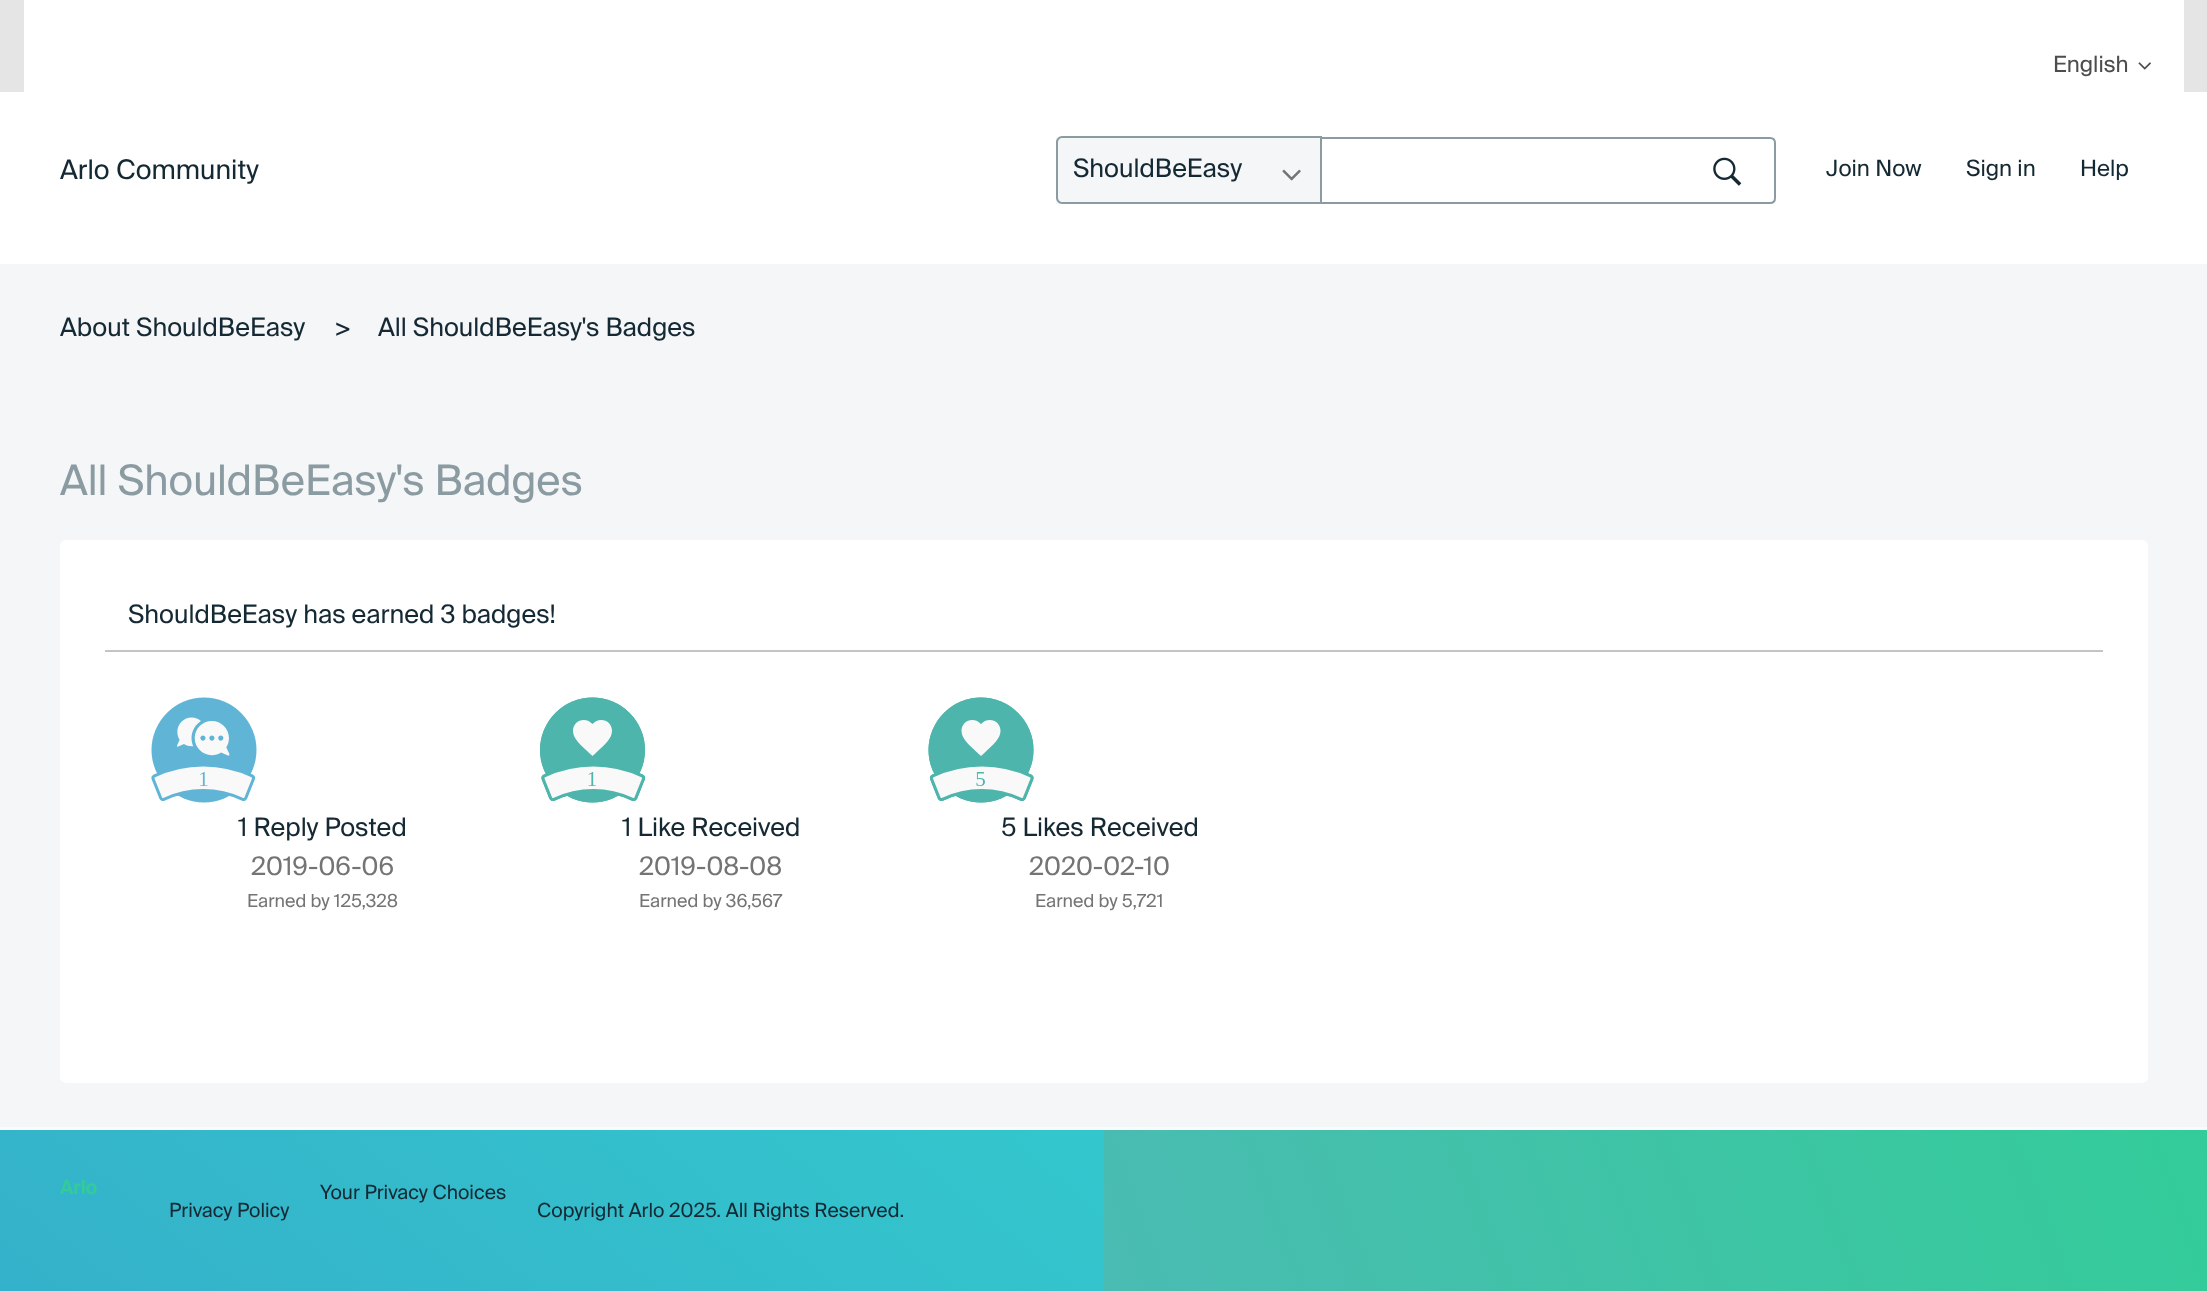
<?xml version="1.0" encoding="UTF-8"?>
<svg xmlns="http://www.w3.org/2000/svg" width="2207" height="1291">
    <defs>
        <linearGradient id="g1" gradientUnits="userSpaceOnUse" x1="1011" y1="1054" x2="93" y2="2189"><stop offset="0" stop-color="#33C7CD"/><stop offset="1" stop-color="#36A0C8"/></linearGradient>
        <linearGradient id="g2" gradientUnits="userSpaceOnUse" x1="1010" y1="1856" x2="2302" y2="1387"><stop offset="0" stop-color="#50B7B9"/><stop offset="1" stop-color="#33CC99"/></linearGradient>
    </defs>
    <rect width="100%" height="100%" fill="#E5E5E5"/>
    <rect x="24" y="0" width="2160" height="92" fill="#FFFFFF"/>
    <text x="2053" y="72" font-family="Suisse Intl" font-size="22.5" fill="#4D4D4D">English</text>
    <image x="2138" y="62" width="13" height="8" href="img_01.png"/>
    <rect x="0" y="92" width="2207" height="172" fill="#FFFFFF"/>
    <text x="60" y="179" font-family="Suisse Intl" font-size="27" fill="#152934">Arlo Community</text>
    <rect x="1056" y="137" width="264" height="67" fill="#F5F6F8"/>
    <image x="1282" y="169" width="19" height="12" href="img_02.png"/>
    <path d="M 1321 138 H 1770 C 1773 138 1775 140 1775 143 V 198 C 1775 201 1773 203 1770 203 H 1321 Z" fill="none" stroke="#8B9BA2" stroke-width="2"/>
    <path d="M 1062 136 H 1322 V 204 H 1062 C 1059 204 1056 201 1056 198 V 142 C 1056 139 1059 136 1062 136 Z M 1062 138 H 1322 V 202 H 1062 C 1060 202 1058 200 1058 198 V 142 C 1058 140 1060 138 1062 138 Z" fill="#8B9BA2" fill-rule="evenodd"/>
    <text x="1073" y="177" font-family="Suisse Intl" font-size="25.5" fill="#152934">ShouldBeEasy</text>
    <image x="1713" y="157" width="29" height="29" href="img_03.png"/>
    <text x="1826" y="176" font-family="Suisse Intl" font-size="22.5" fill="#152934">Join Now</text>
    <text x="1966" y="176" font-family="Suisse Intl" font-size="22.5" fill="#152934">Sign in</text>
    <text x="2080" y="176" font-family="Suisse Intl" font-size="22.5" fill="#152934">Help</text>
    <rect x="0" y="264" width="2207" height="863" fill="#F5F6F8"/>
    <text x="60" y="336" font-family="Suisse Intl" font-size="25.5" fill="#152934">About ShouldBeEasy</text>
    <text x="334" y="336" font-family="Suisse Intl" font-size="25.5" fill="#152934">&gt;</text>
    <text x="378" y="336" font-family="Suisse Intl" font-size="25.5" fill="#152934">All ShouldBeEasy's Badges</text>
    <text x="60" y="495" font-family="Suisse Intl" font-size="42" fill="#8B9BA2">All ShouldBeEasy's Badges</text>
    <rect x="60" y="540" width="2088" height="543" rx="6" fill="#FFFFFF"/>
    <rect x="105" y="650" width="1998" height="2" fill="#C4C4C4"/>
    <text x="128" y="623" font-family="Suisse Intl" font-size="25.5" fill="#152934">ShouldBeEasy has earned 3 badges!</text>
    <image x="151" y="697" width="106" height="106" href="img_04.png"/>
    <text x="238" y="836" font-family="Suisse Intl" font-size="25.5" fill="#152934">1 Reply Posted</text>
    <text x="251" y="875" font-family="Suisse Intl" font-size="25.5" fill="#747474">2019-06-06</text>
    <text x="247" y="907" font-family="Suisse Intl" font-size="18" fill="#747474">Earned by 125,328</text>
    <image x="540" y="697" width="106" height="106" href="img_05.png"/>
    <text x="622" y="836" font-family="Suisse Intl" font-size="25.5" fill="#152934">1 Like Received</text>
    <text x="639" y="875" font-family="Suisse Intl" font-size="25.5" fill="#747474">2019-08-08</text>
    <text x="639" y="907" font-family="Suisse Intl" font-size="18" fill="#747474">Earned by 36,567</text>
    <image x="928" y="697" width="106" height="106" href="img_06.png"/>
    <text x="1001" y="836" font-family="Suisse Intl" font-size="25.5" fill="#152934">5 Likes Received</text>
    <text x="1029" y="875" font-family="Suisse Intl" font-size="25.5" fill="#747474">2020-02-10</text>
    <text x="1035" y="907" font-family="Suisse Intl" font-size="18" fill="#747474">Earned by 5,721</text>
    <rect x="0" y="1127" width="2207" height="3" fill="#FBFBFB"/>
    <rect x="0" y="1130" width="1104" height="161" fill="url(#g1)"/>
    <rect x="1104" y="1130" width="1103" height="161" fill="url(#g2)"/>
    <text x="60" y="1194" font-family="Suisse Intl" font-size="19.5" font-weight="600" fill="#33CC99">Arlo</text>
    <text x="320" y="1199" font-family="Suisse Intl" font-size="19.5" fill="#152934">Your Privacy Choices</text>
    <text x="169" y="1217" font-family="Suisse Intl" font-size="19.5" fill="#152934">Privacy Policy</text>
    <text x="537" y="1217" font-family="Suisse Intl" font-size="19.5" fill="#152934">Copyright Arlo 2025. All Rights Reserved.</text>
</svg>
